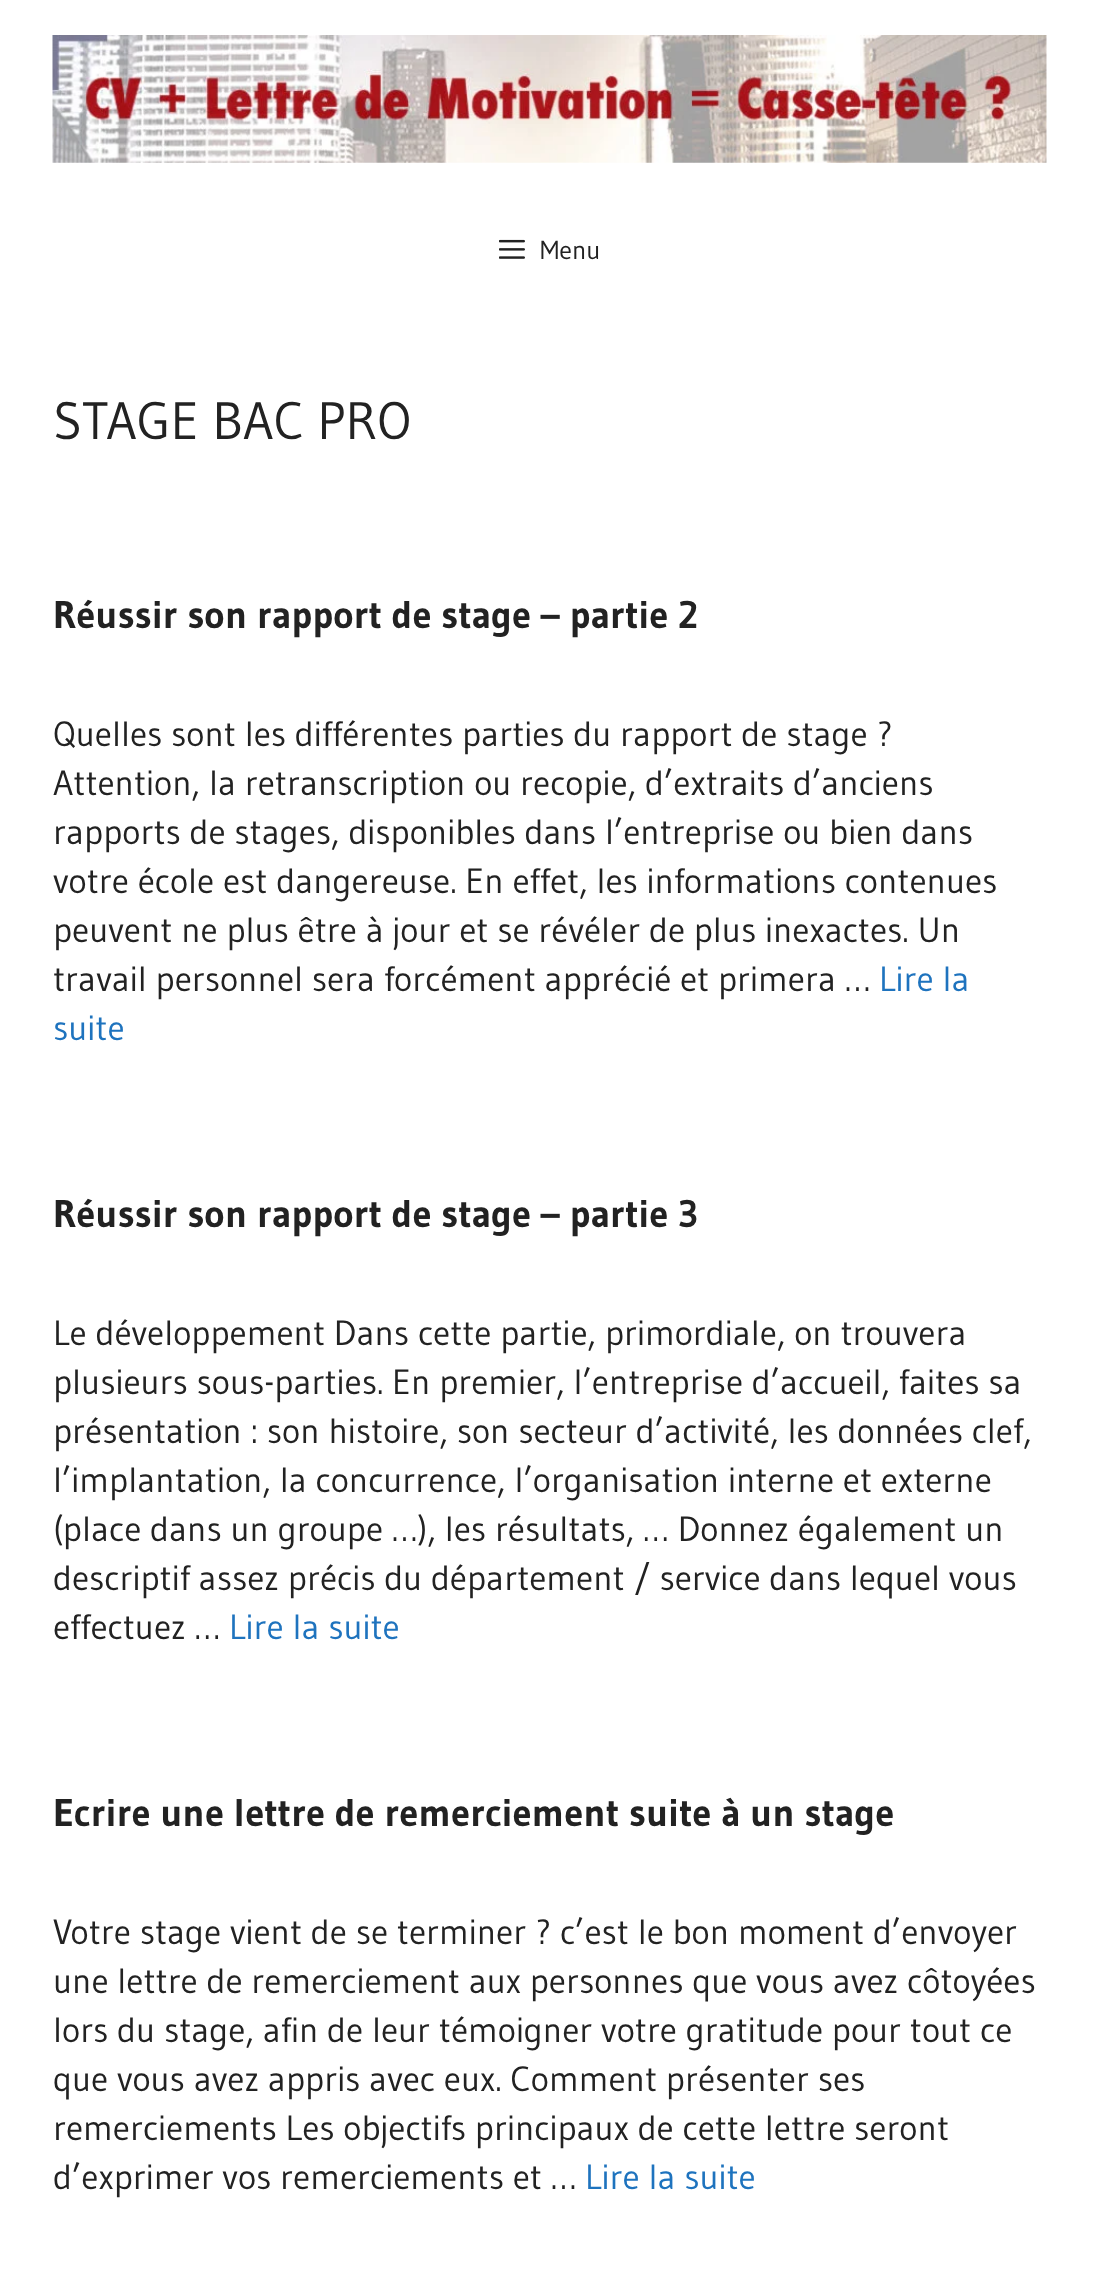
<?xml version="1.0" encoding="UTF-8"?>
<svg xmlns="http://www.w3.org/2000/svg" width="1098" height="2288">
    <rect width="100%" height="100%" fill="#FFFFFF"/>
    <image x="52" y="35" width="995" height="128" href="img_01.png"/>
    <image x="499" y="239" width="26" height="20" href="img_02.png"/>
    <text x="540" y="259" font-family="Gudea" font-size="26" fill="#222222">Menu</text>
    <text x="53" y="439" font-family="Gudea" font-size="52.5" fill="#222222">STAGE BAC PRO</text>
    <text x="53" y="628" font-family="Gudea" font-size="38.5" font-weight="700" fill="#222222">Réussir son rapport de stage – partie 2</text>
    <text font-family="Gudea" font-size="35" fill="#222222">
        <tspan x="53" y="746">Quelles sont les différentes parties du rapport de stage ?</tspan>
        <tspan x="53" y="795">Attention, la retranscription ou recopie, d’extraits d’anciens</tspan>
        <tspan x="53" y="844">rapports de stages, disponibles dans l’entreprise ou bien dans</tspan>
        <tspan x="53" y="893">votre école est dangereuse. En effet, les informations contenues</tspan>
        <tspan x="53" y="942">peuvent ne plus être à jour et se révéler de plus inexactes. Un</tspan>
        <tspan x="53" y="991">travail personnel sera forcément apprécié et primera …</tspan>
    </text>
    <text x="879" y="991" font-family="Gudea" font-size="35" fill="#1E73BE">Lire la</text>
    <text x="53" y="1040" font-family="Gudea" font-size="35" fill="#1E73BE">suite</text>
    <text x="53" y="1227" font-family="Gudea" font-size="38.5" font-weight="700" fill="#222222">Réussir son rapport de stage – partie 3</text>
    <text font-family="Gudea" font-size="35" fill="#222222">
        <tspan x="53" y="1345">Le développement Dans cette partie, primordiale, on trouvera</tspan>
        <tspan x="53" y="1394">plusieurs sous-parties. En premier, l’entreprise d’accueil, faites sa</tspan>
        <tspan x="53" y="1443">présentation : son histoire, son secteur d’activité, les données clef,</tspan>
        <tspan x="53" y="1492">l’implantation, la concurrence, l’organisation interne et externe</tspan>
        <tspan x="53" y="1541">(place dans un groupe …), les résultats, … Donnez également un</tspan>
        <tspan x="53" y="1590">descriptif assez précis du département / service dans lequel vous</tspan>
        <tspan x="53" y="1639">effectuez …</tspan>
    </text>
    <text x="229" y="1639" font-family="Gudea" font-size="35" fill="#1E73BE">Lire la suite</text>
    <text x="53" y="1826" font-family="Gudea" font-size="38.5" font-weight="700" fill="#222222">Ecrire une lettre de remerciement suite à un stage</text>
    <text font-family="Gudea" font-size="35" fill="#222222">
        <tspan x="53" y="1944">Votre stage vient de se terminer ? c’est le bon moment d’envoyer</tspan>
        <tspan x="53" y="1993">une lettre de remerciement aux personnes que vous avez côtoyées</tspan>
        <tspan x="53" y="2042">lors du stage, afin de leur témoigner votre gratitude pour tout ce</tspan>
        <tspan x="53" y="2091">que vous avez appris avec eux. Comment présenter ses</tspan>
        <tspan x="53" y="2140">remerciements Les objectifs principaux de cette lettre seront</tspan>
        <tspan x="53" y="2189">d’exprimer vos remerciements et …</tspan>
    </text>
    <text x="585" y="2189" font-family="Gudea" font-size="35" fill="#1E73BE">Lire la suite</text>
</svg>
